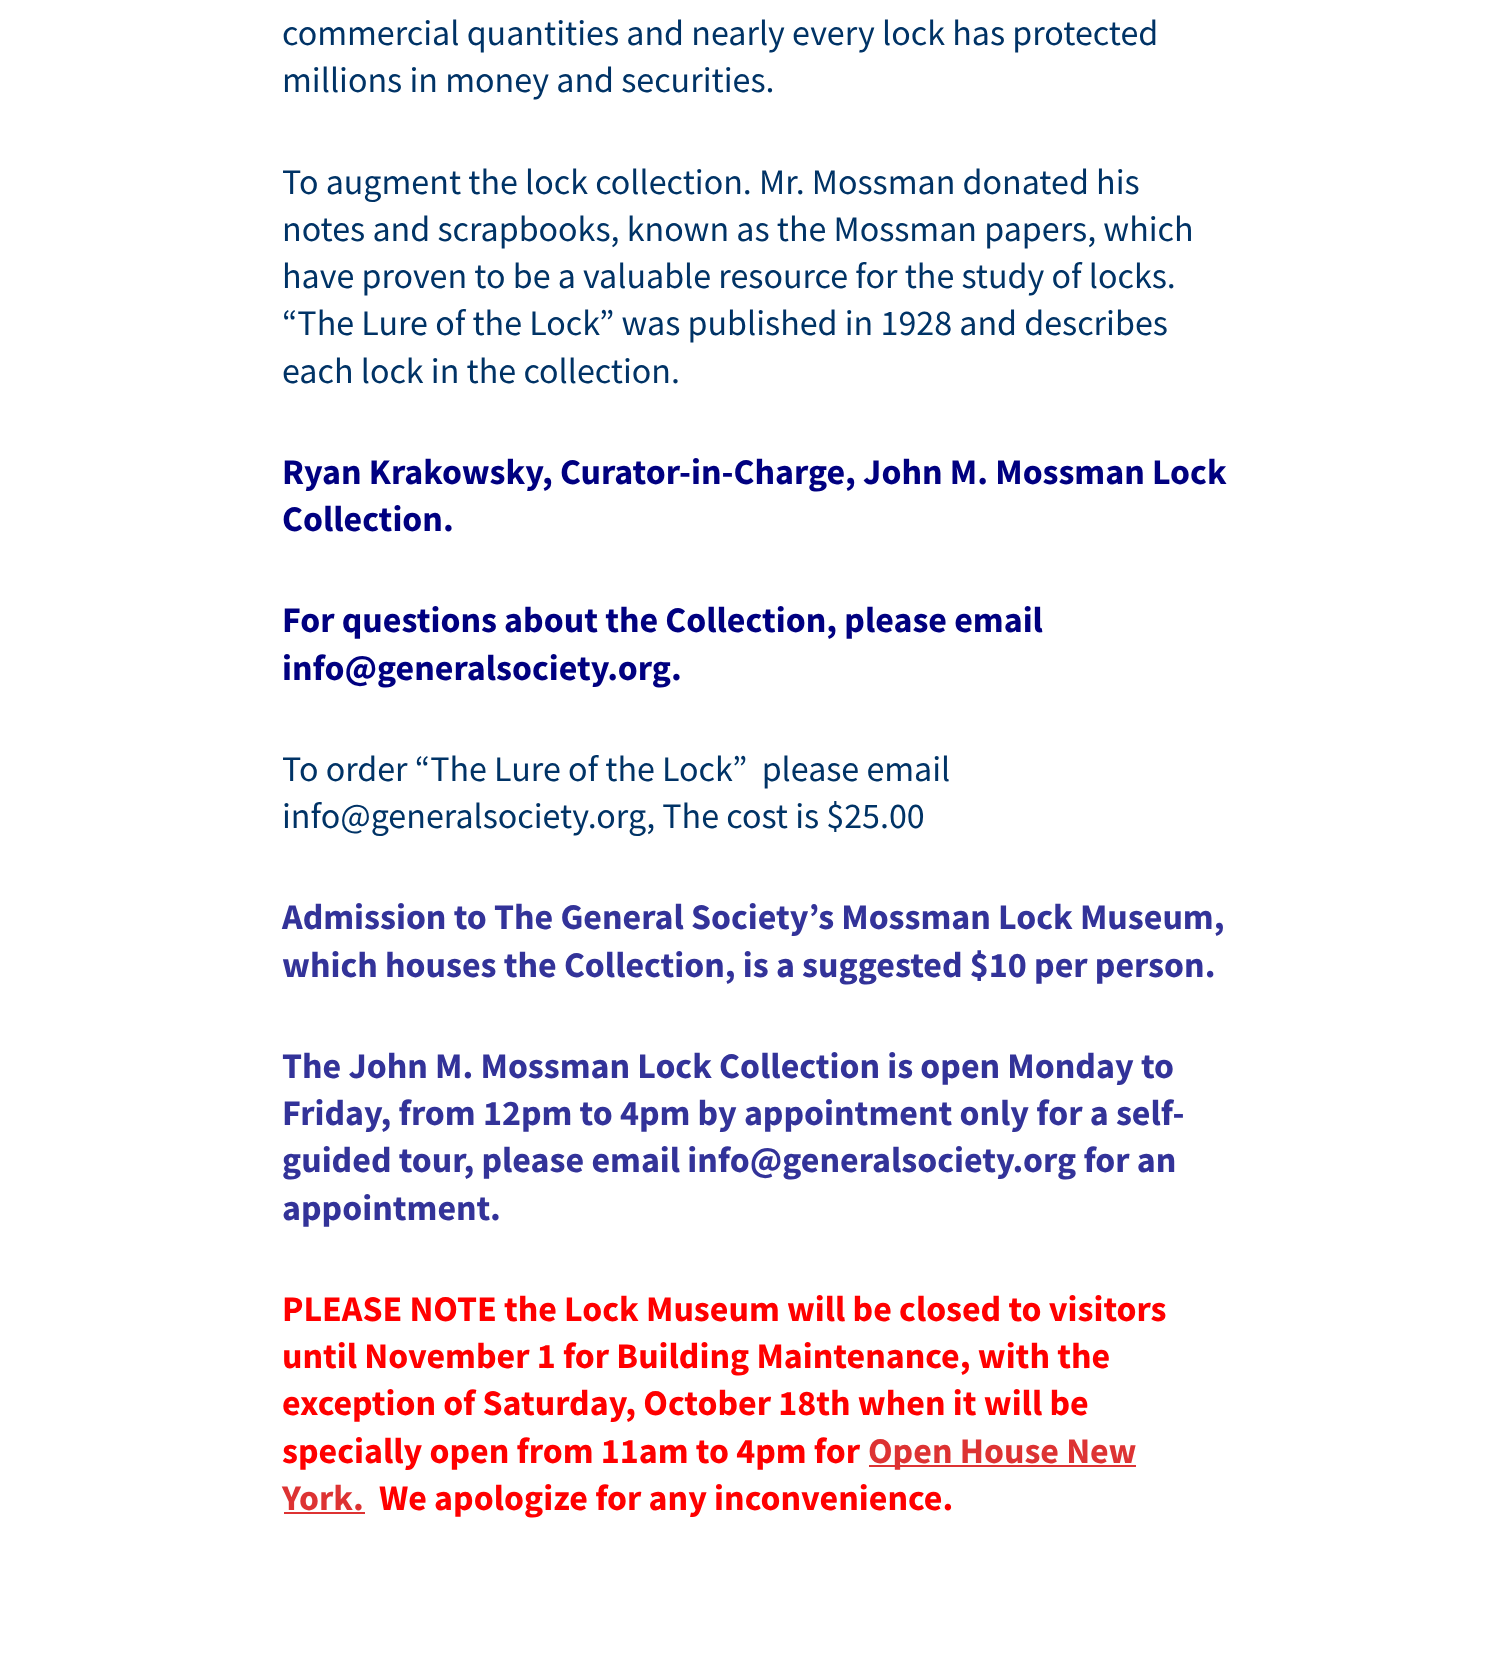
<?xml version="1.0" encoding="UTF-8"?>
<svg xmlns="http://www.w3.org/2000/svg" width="1508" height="1678">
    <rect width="100%" height="100%" fill="#FFFFFF"/>
    <text font-family="Source Sans Pro" font-size="36" fill="#003366">
        <tspan x="282" y="45">commercial quantities and nearly every lock has protected</tspan>
        <tspan x="282" y="92">millions in money and securities.</tspan>
    </text>
    <text font-family="Source Sans Pro" font-size="36" fill="#003366">
        <tspan x="282" y="194">To augment the lock collection. Mr. Mossman donated his</tspan>
        <tspan x="282" y="241">notes and scrapbooks, known as the Mossman papers, which</tspan>
        <tspan x="282" y="288">have proven to be a valuable resource for the study of locks.</tspan>
        <tspan x="282" y="335">“The Lure of the Lock” was published in 1928 and describes</tspan>
        <tspan x="282" y="383">each lock in the collection.</tspan>
    </text>
    <text font-family="Source Sans Pro" font-size="36" font-weight="700" fill="#000080">
        <tspan x="282" y="484">Ryan Krakowsky, Curator-in-Charge, John M. Mossman Lock</tspan>
        <tspan x="282" y="531">Collection.</tspan>
    </text>
    <text font-family="Source Sans Pro" font-size="36" font-weight="700" fill="#000080">
        <tspan x="282" y="632">For questions about the Collection, please email</tspan>
        <tspan x="282" y="680">info@generalsociety.org.</tspan>
    </text>
    <text font-family="Source Sans Pro" font-size="36" fill="#003366" xml:space="preserve"><tspan x="282" y="781">To order “The Lure of the Lock”  please email</tspan><tspan x="282" y="828">info@generalsociety.org, The cost is $25.00</tspan></text>
    <text font-family="Source Sans Pro" font-size="36" font-weight="700" fill="#333399">
        <tspan x="282" y="929">Admission to The General Society’s Mossman Lock Museum,</tspan>
        <tspan x="282" y="977">which houses the Collection, is a suggested $10 per person.</tspan>
    </text>
    <text font-family="Source Sans Pro" font-size="36" font-weight="700" fill="#333399">
        <tspan x="282" y="1078">The John M. Mossman Lock Collection is open Monday to</tspan>
        <tspan x="282" y="1125">Friday, from 12pm to 4pm by appointment only for a self-</tspan>
        <tspan x="282" y="1172">guided tour, please email info@generalsociety.org for an</tspan>
        <tspan x="282" y="1220">appointment.</tspan>
    </text>
    <text font-family="Source Sans Pro" font-size="36" font-weight="700" fill="#FF0000">
        <tspan x="282" y="1321">PLEASE NOTE the Lock Museum will be closed to visitors</tspan>
        <tspan x="282" y="1368">until November 1 for Building Maintenance, with the</tspan>
        <tspan x="282" y="1415">exception of Saturday, October 18th when it will be</tspan>
        <tspan x="282" y="1463">specially open from 11am to 4pm for</tspan>
    </text>
    <rect x="869" y="1465" width="267" height="2" fill="#DD3333"/>
    <text x="868" y="1463" font-family="Source Sans Pro" font-size="36" font-weight="700" fill="#DD3333">Open House New</text>
    <text x="282" y="1510" font-family="Source Sans Pro" font-size="36" font-weight="700" fill="#DD3333">York.</text>
    <rect x="284" y="1512" width="81" height="2" fill="#DD3333"/>
    <text x="379" y="1510" font-family="Source Sans Pro" font-size="36" font-weight="700" fill="#FF0000">We apologize for any inconvenience.</text>
</svg>
